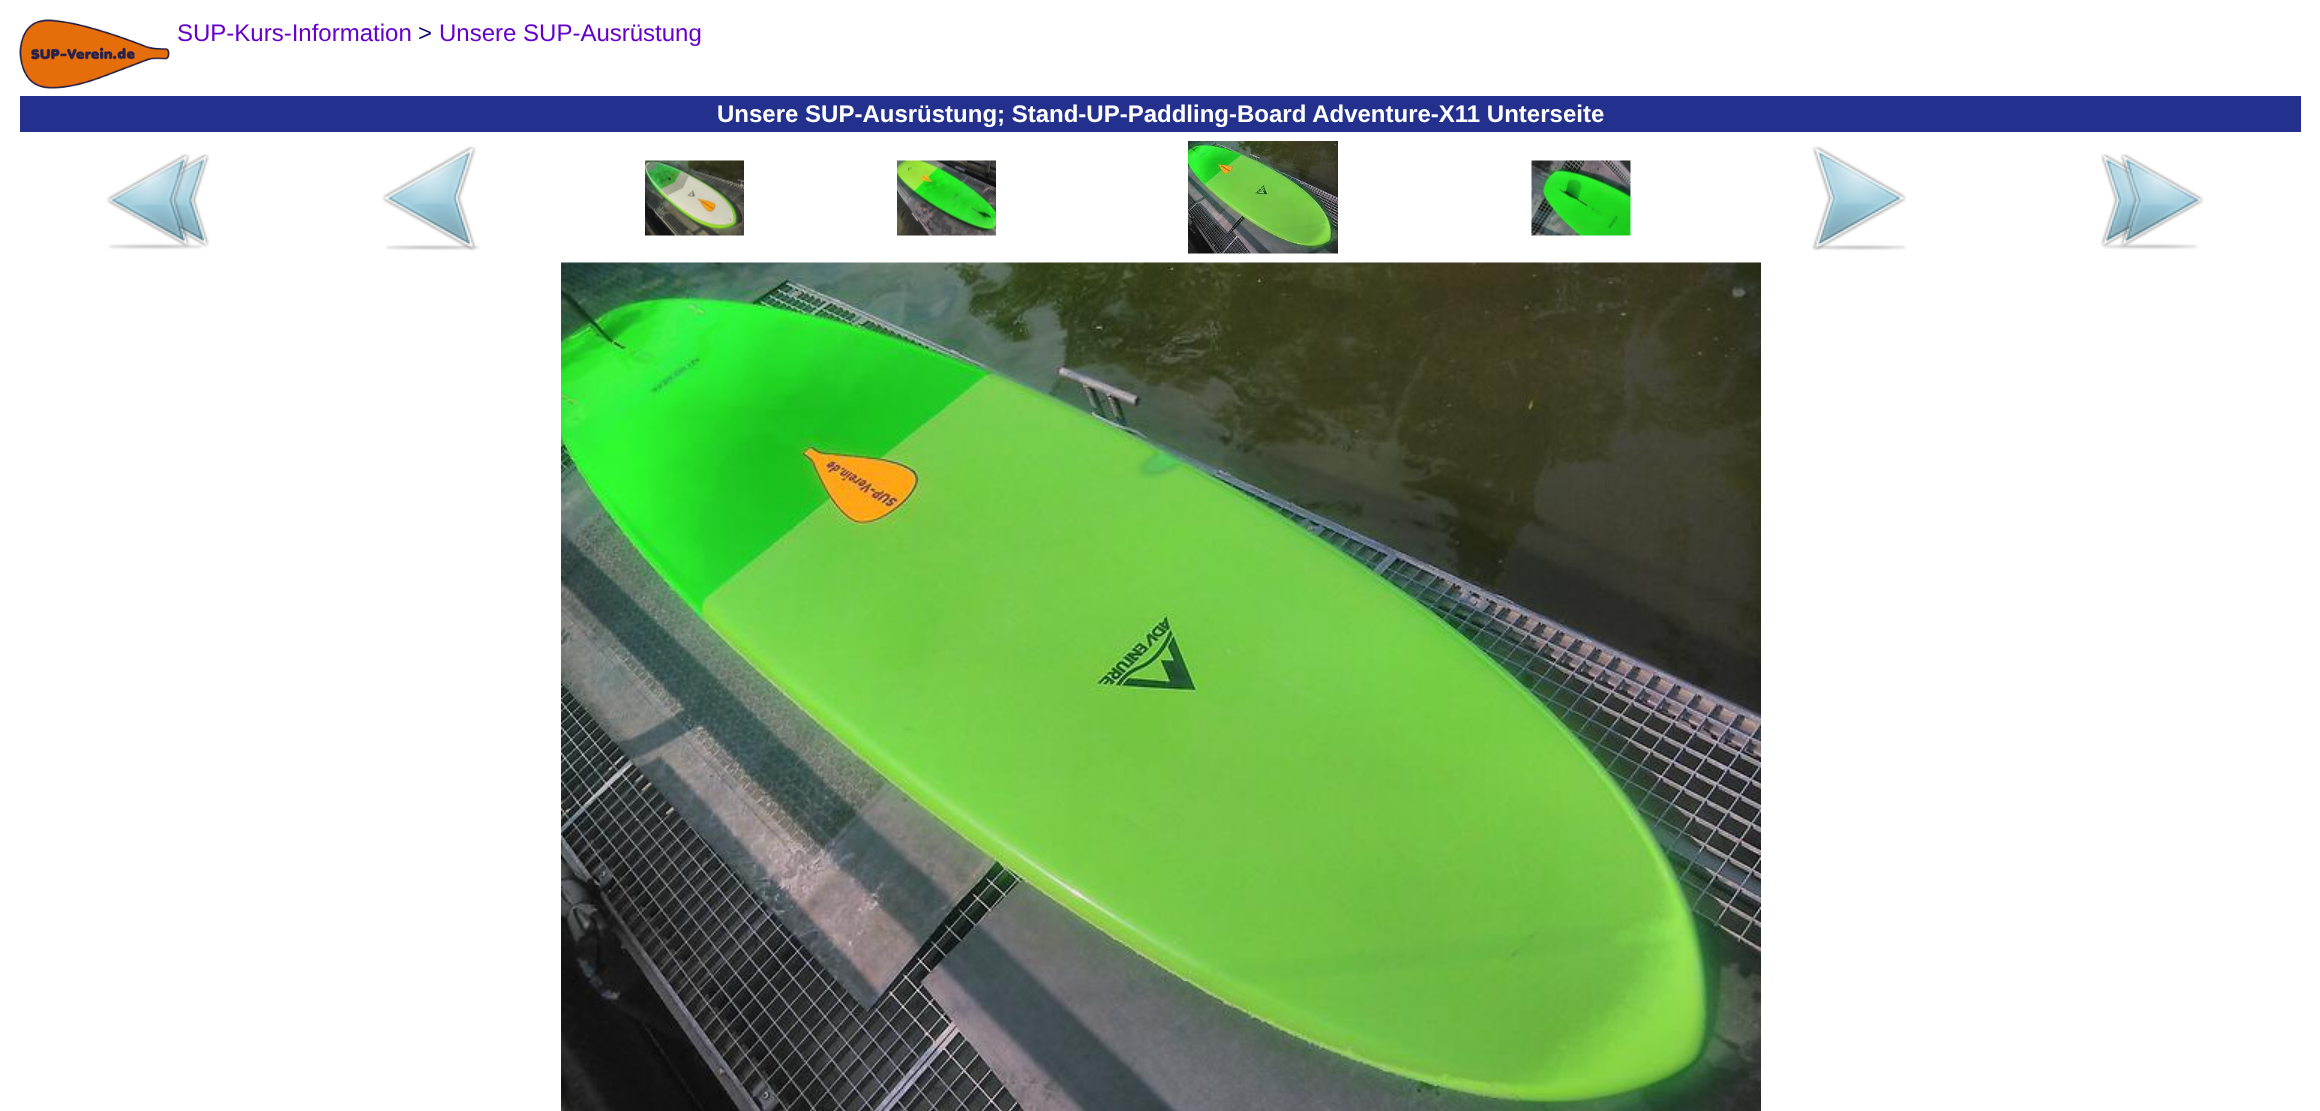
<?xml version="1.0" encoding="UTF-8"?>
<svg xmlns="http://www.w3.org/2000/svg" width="2320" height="1111">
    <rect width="100%" height="100%" fill="#FFFFFF"/>
    <image x="19" y="19" width="151" height="70" href="img_01.png"/>
    <text x="177" y="41" font-family="Liberation Sans" font-size="24" fill="#6600CC">SUP-Kurs-Information</text>
    <text x="418" y="41" font-family="Liberation Sans" font-size="24" fill="#080875">&gt;</text>
    <text x="439" y="41" font-family="Liberation Sans" font-size="24" fill="#6600CC">Unsere SUP-Ausrüstung</text>
    <rect x="20" y="96" width="2281" height="36" fill="#23308E"/>
    <text x="717" y="122" font-family="Liberation Sans" font-size="24" font-weight="700" fill="#FFFFFF">Unsere SUP-Ausrüstung; Stand-UP-Paddling-Board Adventure-X11 Unterseite</text>
    <image x="106" y="154" width="103" height="96" href="img_02.png"/>
    <image x="382" y="146" width="98" height="105" href="img_03.png"/>
    <image x="645" y="160" width="99" height="76" href="img_04.png"/>
    <image x="897" y="160" width="99" height="76" href="img_05.png"/>
    <image x="1188" y="141" width="150" height="113" href="img_06.png"/>
    <image x="1531" y="160" width="100" height="76" href="img_07.png"/>
    <image x="1812" y="146" width="94" height="105" href="img_08.png"/>
    <image x="2101" y="154" width="103" height="96" href="img_09.png"/>
    <image x="561" y="262" width="1200" height="849" href="img_10.png"/>
</svg>
